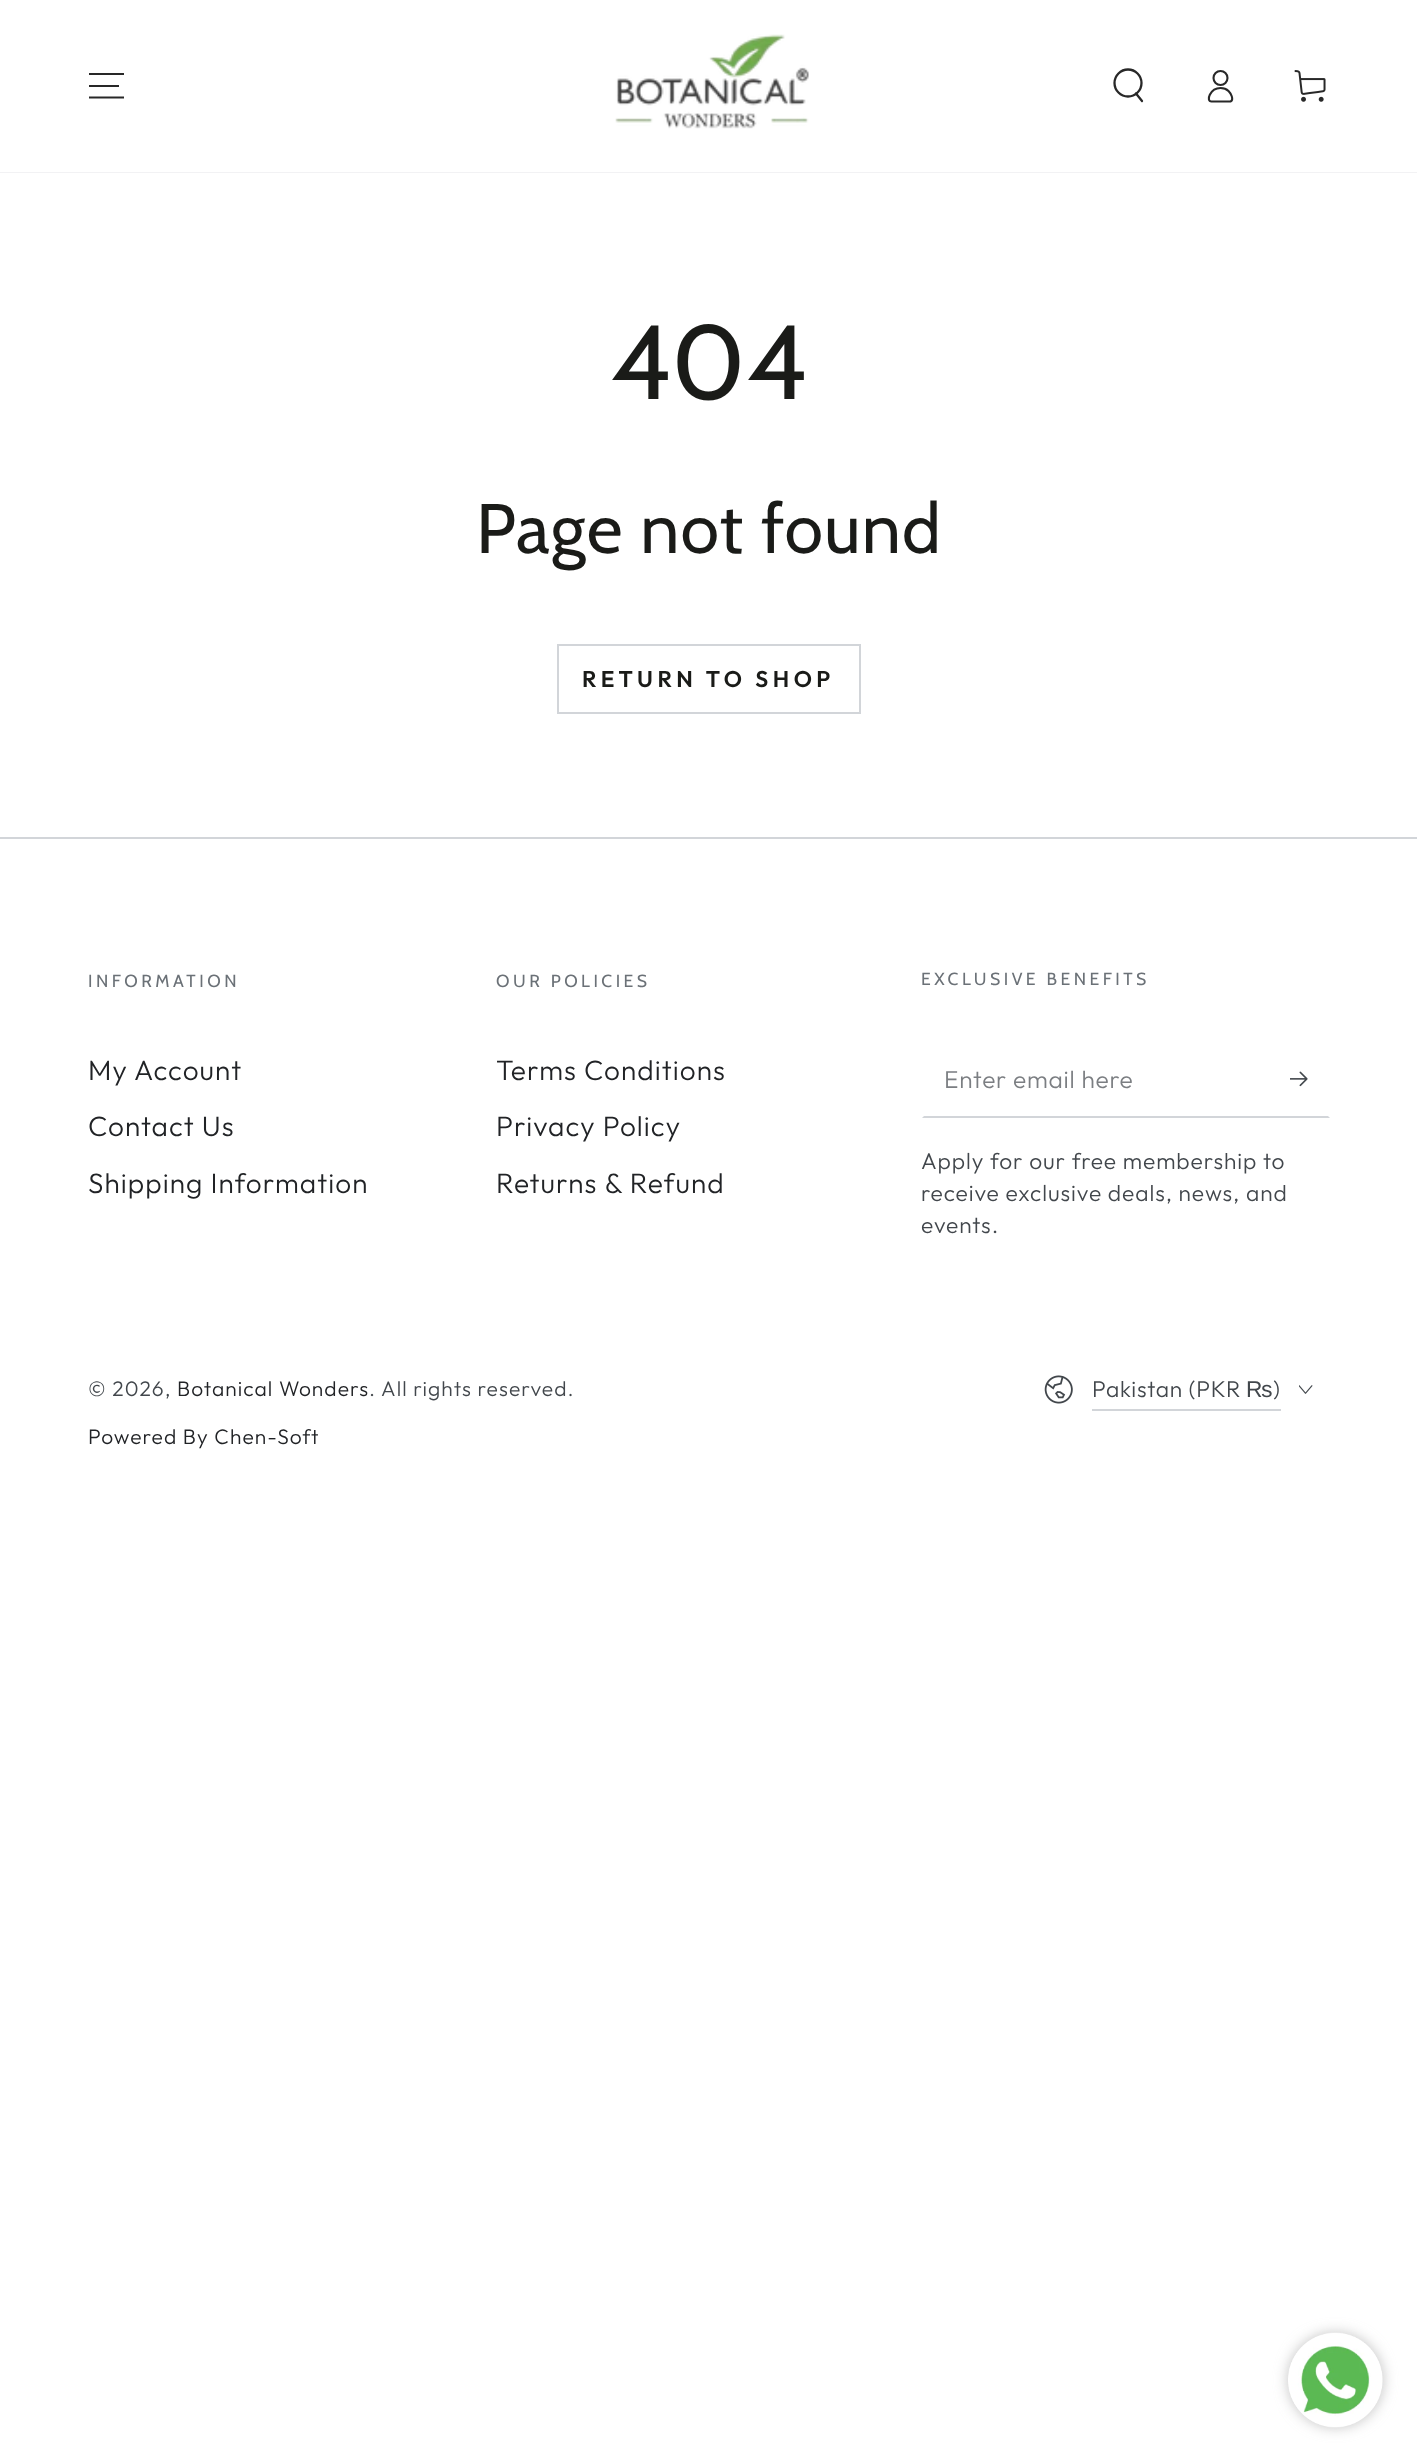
<?xml version="1.0" encoding="UTF-8"?>
<svg xmlns="http://www.w3.org/2000/svg" width="1417" height="2461">
    <defs>
        <filter id="blur1" x="-50%" y="-200%" width="200%" height="500%"><feGaussianBlur stdDeviation="7"/></filter>
    </defs>
    <rect width="100%" height="100%" fill="#FFFFFF"/>
    <path d="M 0 172 V 173 H 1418 V 2 V 172 Z" fill="#F2F2F4"/>
    <path d="M 89 97.5 H 124 M 89 86 H 119 M 89 74 H 124" fill="none" stroke="#282828" stroke-width="2"/>
    <image x="615" y="34" width="194" height="95" href="img_01.png"/>
    <circle cx="1128" cy="83" r="13.5" fill="none" stroke="#282828" stroke-width="2.3"/>
    <path d="M 1136 93.5 L 1142 101" fill="none" stroke="#282828" stroke-width="2.3" stroke-linecap="round"/>
    <path d="M 1220.5 88 C 1210 88 1205.5 101.5 1211.5 101.5 H 1230.5 C 1234.5 99.5 1230.5 93 1228.5 91 C 1226.5 89 1223.5 88 1220.5 88 Z" fill="none" stroke="#282828" stroke-width="2.1"/>
    <circle cx="1220.5" cy="78" r="7" fill="none" stroke="#282828" stroke-width="2.1"/>
    <image x="1294" y="70" width="32" height="32" href="img_02.png"/>
    <text x="610" y="399" font-family="Cabin" font-size="105" letter-spacing="1.05" fill="#1A1B18">404</text>
    <text x="476" y="553" font-family="Cabin" font-size="70" letter-spacing="1.05" fill="#1A1B18">Page not found</text>
    <rect x="558" y="645" width="302" height="68" fill="none" stroke="#D2D5D9" stroke-width="2"/>
    <text x="582" y="687" font-family="Outfit" font-size="22.75" font-weight="600" letter-spacing="4.5" fill="#1A1B18">RETURN TO SHOP</text>
    <rect x="0" y="837" width="1417" height="2" fill="#D2D5D9"/>
    <text x="88" y="987" font-family="Cabin" font-size="17.5" letter-spacing="3.5" fill="#6B7177">INFORMATION</text>
    <text x="88" y="1080" font-family="Outfit" font-size="28" font-weight="300" letter-spacing="1.05" fill="#212326">My Account</text>
    <text x="88" y="1136" font-family="Outfit" font-size="28" font-weight="300" letter-spacing="1.05" fill="#212326">Contact Us</text>
    <text x="88" y="1193" font-family="Outfit" font-size="28" font-weight="300" letter-spacing="1.05" fill="#212326">Shipping Information</text>
    <text x="496" y="987" font-family="Cabin" font-size="17.5" letter-spacing="3.5" fill="#6B7177">OUR POLICIES</text>
    <text x="496" y="1080" font-family="Outfit" font-size="28" font-weight="300" letter-spacing="1.05" fill="#212326">Terms Conditions</text>
    <text x="496" y="1136" font-family="Outfit" font-size="28" font-weight="300" letter-spacing="1.05" fill="#212326">Privacy Policy</text>
    <text x="496" y="1193" font-family="Outfit" font-size="28" font-weight="300" letter-spacing="1.05" fill="#212326">Returns &amp; Refund</text>
    <text x="921" y="985" font-family="Cabin" font-size="17.5" letter-spacing="3.5" fill="#6B7177">EXCLUSIVE BENEFITS</text>
    <path d="M 1330 1118 H 922 L 924 1116 H 1328 Z" fill="#D2D5D9"/>
    <text x="944" y="1088" font-family="Outfit" font-size="24.5" font-weight="300" letter-spacing="0.75" fill="#7B7E82">Enter email here</text>
    <image x="1290" y="1071" width="18" height="16" href="img_03.png"/>
    <text font-family="Outfit" font-size="22.75" font-weight="300" letter-spacing="0.9" fill="#42474C">
        <tspan x="921" y="1169">Apply for our free membership to</tspan>
        <tspan x="921" y="1201">receive exclusive deals, news, and</tspan>
        <tspan x="921" y="1233">events.</tspan>
    </text>
    <text x="88" y="1396" font-family="Outfit" font-size="21" font-weight="300" letter-spacing="1.05" fill="#42474C">© 2026,</text>
    <text x="177" y="1396" font-family="Outfit" font-size="21" font-weight="300" letter-spacing="1.05" fill="#212326">Botanical Wonders</text>
    <text x="369" y="1396" font-family="Outfit" font-size="21" font-weight="300" letter-spacing="1.05" fill="#42474C">. All rights reserved.</text>
    <text x="88" y="1444" font-family="Outfit" font-size="21" font-weight="300" letter-spacing="1.05" fill="#212326">Powered By Chen-Soft</text>
    <image x="1044" y="1375" width="29" height="29" href="img_04.png"/>
    <rect x="1092" y="1409" width="189" height="2" fill="#D2D5D9"/>
    <text x="1092" y="1397" font-family="Outfit" font-size="22.75" font-weight="300" letter-spacing="0.75" fill="#42474C">Pakistan (PKR</text>
    <text x="1246" y="1397" font-family="Liberation Sans" font-size="22.75" letter-spacing="0.75" fill="#42474C">₨</text>
    <text x="1273" y="1397" font-family="Outfit" font-size="22.75" font-weight="300" letter-spacing="0.75" fill="#42474C">)</text>
    <image x="1299" y="1385" width="14" height="9" href="img_05.png"/>
    <rect x="1288" y="2333" width="95" height="94" rx="47" fill="#C2C2C2" filter="url(#blur1)"/>
    <image x="1288" y="2332" width="95" height="96" href="img_06.png"/>
</svg>
